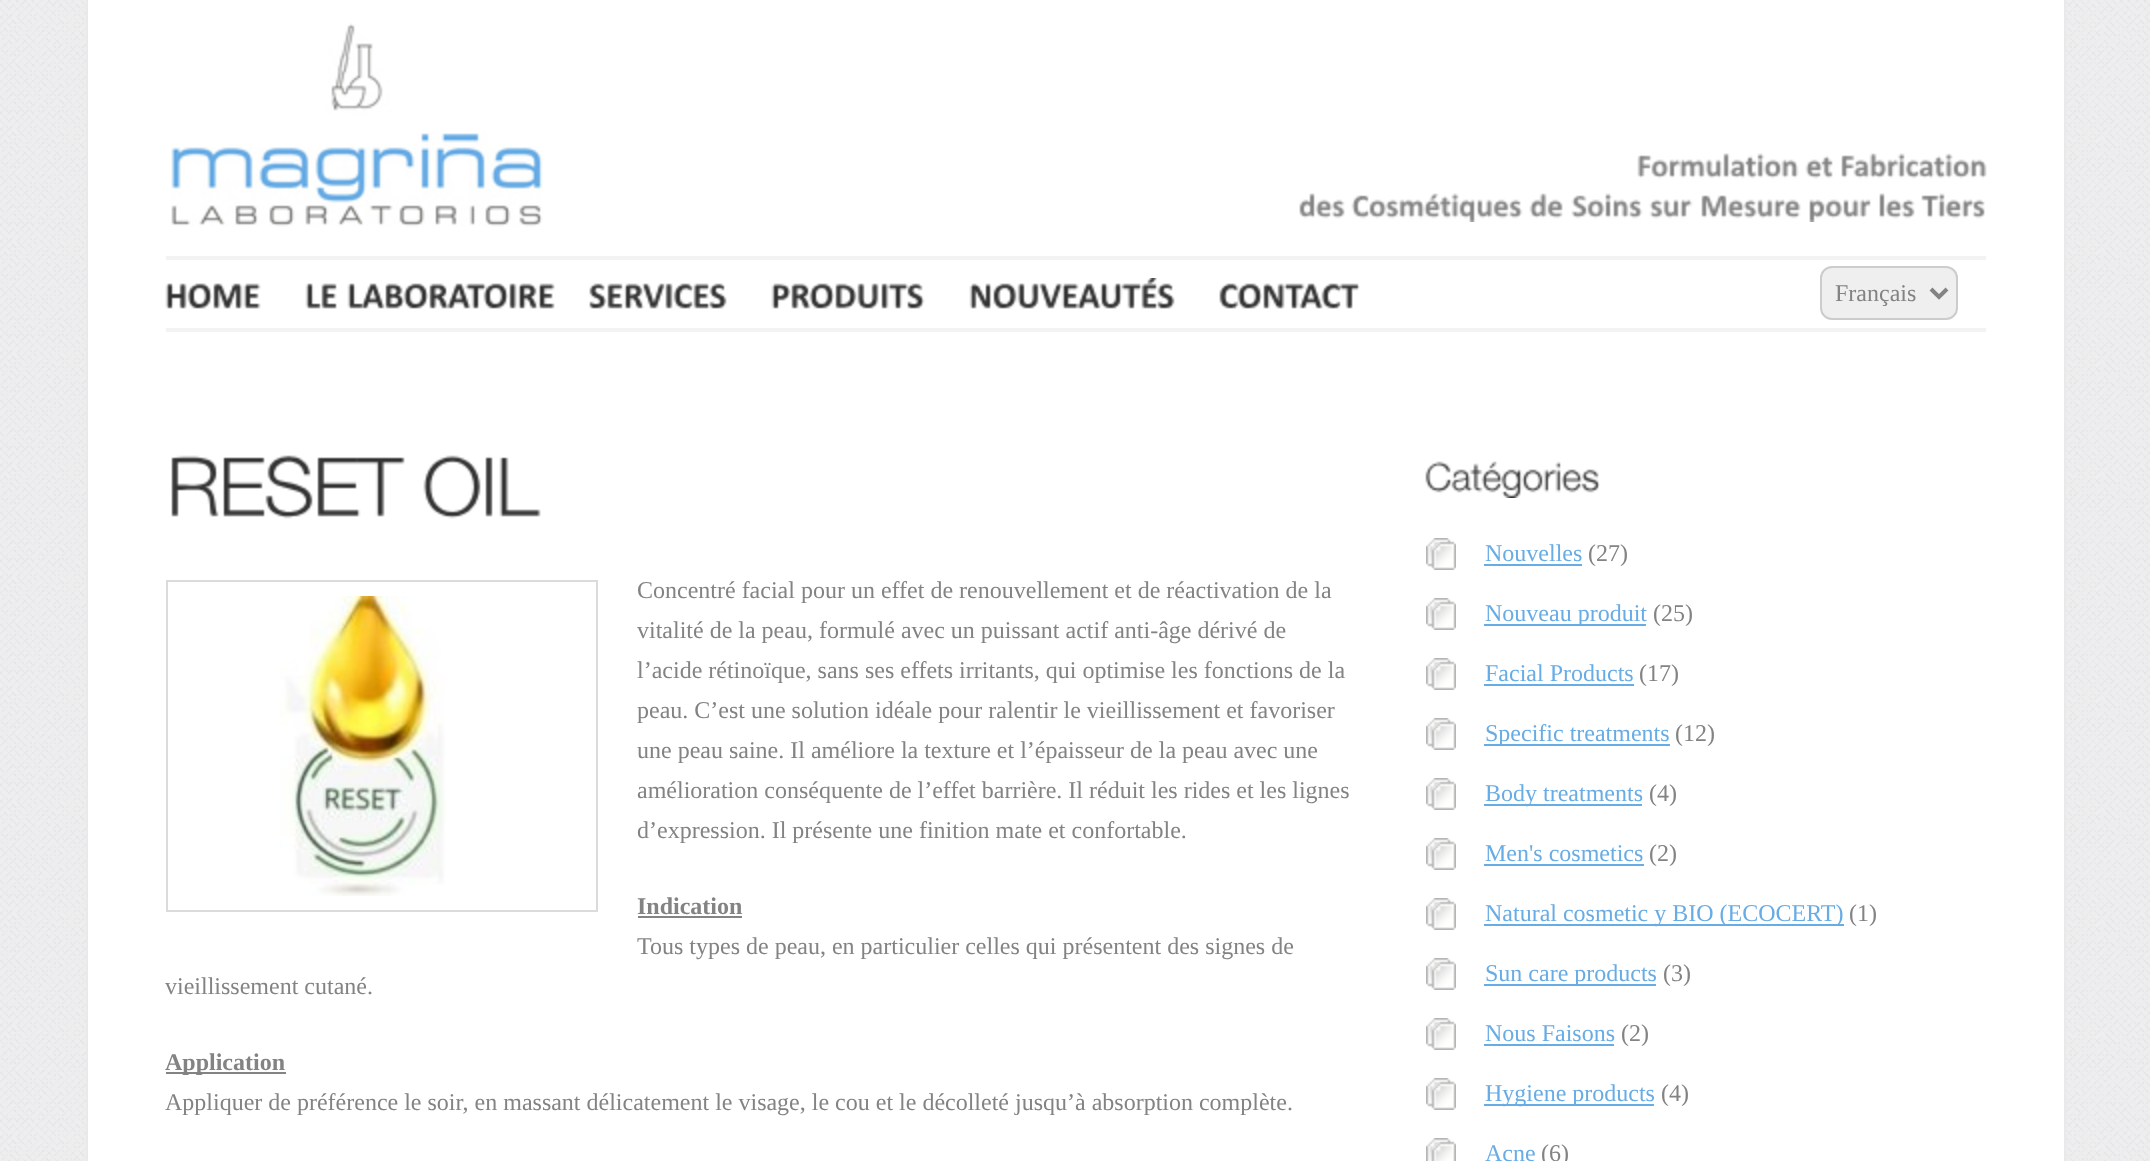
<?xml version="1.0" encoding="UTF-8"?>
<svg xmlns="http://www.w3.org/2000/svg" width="2150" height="1161">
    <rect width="100%" height="100%" fill="#FFFFFF"/>
    <image x="0" y="0" width="2150" height="1161" href="img_01.png"/>
    <rect x="88" y="0" width="1976" height="1161" fill="#FFFFFF"/>
    <rect x="2064" y="0" width="2" height="1161" fill="#E9E9EA"/>
    <rect x="86" y="0" width="2" height="1161" fill="#E9E9EA"/>
    <image x="171" y="23" width="372" height="204" href="img_02.png"/>
    <image x="1637" y="153" width="162" height="26" href="img_03.png"/>
    <image x="1805" y="155" width="28" height="24" href="img_04.png"/>
    <image x="1841" y="153" width="146" height="26" href="img_05.png"/>
    <image x="1299" y="193" width="46" height="26" href="img_06.png"/>
    <image x="1351" y="193" width="172" height="29" href="img_07.png"/>
    <image x="1529" y="193" width="34" height="26" href="img_08.png"/>
    <image x="1571" y="193" width="72" height="26" href="img_09.png"/>
    <image x="1649" y="199" width="44" height="20" href="img_10.png"/>
    <image x="1701" y="195" width="100" height="24" href="img_11.png"/>
    <image x="1809" y="199" width="62" height="23" href="img_12.png"/>
    <image x="1879" y="193" width="36" height="26" href="img_13.png"/>
    <image x="1921" y="193" width="64" height="26" href="img_14.png"/>
    <rect x="166" y="256" width="1820" height="4" fill="#F3F3F4"/>
    <rect x="166" y="328" width="1820" height="4" fill="#F3F3F4"/>
    <image x="165" y="283" width="96" height="26" href="img_15.png"/>
    <image x="305" y="283" width="32" height="26" href="img_16.png"/>
    <image x="347" y="283" width="208" height="26" href="img_17.png"/>
    <image x="589" y="283" width="138" height="26" href="img_18.png"/>
    <image x="771" y="283" width="154" height="26" href="img_19.png"/>
    <image x="969" y="278" width="206" height="31" href="img_20.png"/>
    <image x="1219" y="283" width="141" height="26" href="img_21.png"/>
    <rect x="1821" y="267" width="136" height="52" rx="11" fill="#EFEFEF" stroke="#CCCCCC" stroke-width="2"/>
    <path d="M 1931 289 L 1939 297 L 1947 289" fill="none" stroke="#838383" stroke-width="4"/>
    <text x="1835" y="301" font-family="Liberation Serif" font-size="24" fill="#838383">Français</text>
    <image x="171" y="455" width="234" height="64" href="img_22.png"/>
    <image x="423" y="455" width="118" height="64" href="img_23.png"/>
    <rect x="167" y="581" width="430" height="330" fill="none" stroke="#DBDBDB" stroke-width="2"/>
    <image x="280" y="596" width="166" height="300" href="img_24.png"/>
    <text font-family="Liberation Serif" font-size="24" fill="#838383">
        <tspan x="637" y="598">Concentré facial pour un effet de renouvellement et de réactivation de la</tspan>
        <tspan x="637" y="638">vitalité de la peau, formulé avec un puissant actif anti-âge dérivé de</tspan>
        <tspan x="637" y="678">l’acide rétinoïque, sans ses effets irritants, qui optimise les fonctions de la</tspan>
        <tspan x="637" y="718">peau. C’est une solution idéale pour ralentir le vieillissement et favoriser</tspan>
        <tspan x="637" y="758">une peau saine. Il améliore la texture et l’épaisseur de la peau avec une</tspan>
        <tspan x="637" y="798">amélioration conséquente de l’effet barrière. Il réduit les rides et les lignes</tspan>
        <tspan x="637" y="838">d’expression. Il présente une finition mate et confortable.</tspan>
    </text>
    <text x="637" y="914" font-family="Liberation Serif" font-size="24" font-weight="700" fill="#838383">Indication</text>
    <rect x="638" y="916" width="104" height="2" fill="#838383"/>
    <text x="637" y="954" font-family="Liberation Serif" font-size="24" fill="#838383">Tous types de peau, en particulier celles qui présentent des signes de</text>
    <text x="165" y="994" font-family="Liberation Serif" font-size="24" fill="#838383">vieillissement cutané.</text>
    <rect x="166" y="1072" width="120" height="2" fill="#838383"/>
    <text x="165" y="1070" font-family="Liberation Serif" font-size="24" font-weight="700" fill="#838383">Application</text>
    <text x="165" y="1110" font-family="Liberation Serif" font-size="24" fill="#838383">Appliquer de préférence le soir, en massant délicatement le visage, le cou et le décolleté jusqu’à absorption complète.</text>
    <image x="1425" y="461" width="175" height="37" href="img_25.png"/>
    <image x="1426" y="538" width="30" height="32" href="img_26.png"/>
    <text x="1485" y="561" font-family="Liberation Serif" font-size="24" fill="#68ACE5">Nouvelles</text>
    <rect x="1484" y="564" width="98" height="2" fill="#68ACE5"/>
    <text x="1588" y="561" font-family="Liberation Serif" font-size="24" fill="#838383">(27)</text>
    <image x="1426" y="598" width="30" height="32" href="img_26.png"/>
    <rect x="1484" y="624" width="162" height="2" fill="#68ACE5"/>
    <text x="1485" y="621" font-family="Liberation Serif" font-size="24" fill="#68ACE5">Nouveau produit</text>
    <text x="1653" y="621" font-family="Liberation Serif" font-size="24" fill="#838383">(25)</text>
    <image x="1426" y="658" width="30" height="32" href="img_26.png"/>
    <text x="1485" y="681" font-family="Liberation Serif" font-size="24" fill="#68ACE5">Facial Products</text>
    <rect x="1484" y="684" width="150" height="2" fill="#68ACE5"/>
    <text x="1639" y="681" font-family="Liberation Serif" font-size="24" fill="#838383">(17)</text>
    <image x="1426" y="718" width="30" height="32" href="img_26.png"/>
    <rect x="1484" y="744" width="186" height="2" fill="#68ACE5"/>
    <text x="1485" y="741" font-family="Liberation Serif" font-size="24" fill="#68ACE5">Specific treatments</text>
    <text x="1675" y="741" font-family="Liberation Serif" font-size="24" fill="#838383">(12)</text>
    <image x="1426" y="778" width="30" height="32" href="img_26.png"/>
    <rect x="1484" y="804" width="158" height="2" fill="#68ACE5"/>
    <text x="1485" y="801" font-family="Liberation Serif" font-size="24" fill="#68ACE5">Body treatments</text>
    <text x="1649" y="801" font-family="Liberation Serif" font-size="24" fill="#838383">(4)</text>
    <image x="1426" y="838" width="30" height="32" href="img_26.png"/>
    <text x="1485" y="861" font-family="Liberation Serif" font-size="24" fill="#68ACE5">Men's cosmetics</text>
    <rect x="1484" y="864" width="160" height="2" fill="#68ACE5"/>
    <text x="1649" y="861" font-family="Liberation Serif" font-size="24" fill="#838383">(2)</text>
    <image x="1426" y="898" width="30" height="32" href="img_26.png"/>
    <rect x="1484" y="924" width="360" height="2" fill="#68ACE5"/>
    <text x="1485" y="921" font-family="Liberation Serif" font-size="24" fill="#68ACE5">Natural cosmetic y BIO (ECOCERT)</text>
    <text x="1849" y="921" font-family="Liberation Serif" font-size="24" fill="#838383">(1)</text>
    <image x="1426" y="958" width="30" height="32" href="img_26.png"/>
    <rect x="1484" y="984" width="172" height="2" fill="#68ACE5"/>
    <text x="1485" y="981" font-family="Liberation Serif" font-size="24" fill="#68ACE5">Sun care products</text>
    <text x="1663" y="981" font-family="Liberation Serif" font-size="24" fill="#838383">(3)</text>
    <image x="1426" y="1018" width="30" height="32" href="img_26.png"/>
    <text x="1485" y="1041" font-family="Liberation Serif" font-size="24" fill="#68ACE5">Nous Faisons</text>
    <rect x="1484" y="1044" width="130" height="2" fill="#68ACE5"/>
    <text x="1621" y="1041" font-family="Liberation Serif" font-size="24" fill="#838383">(2)</text>
    <image x="1426" y="1078" width="30" height="32" href="img_26.png"/>
    <rect x="1484" y="1104" width="170" height="2" fill="#68ACE5"/>
    <text x="1485" y="1101" font-family="Liberation Serif" font-size="24" fill="#68ACE5">Hygiene products</text>
    <text x="1661" y="1101" font-family="Liberation Serif" font-size="24" fill="#838383">(4)</text>
    <image x="1426" y="1138" width="30" height="23" href="img_27.png"/>
    <text x="1485" y="1161" font-family="Liberation Serif" font-size="24" fill="#68ACE5">Acne</text>
    <text x="1541" y="1161" font-family="Liberation Serif" font-size="24" fill="#838383">(6)</text>
</svg>
